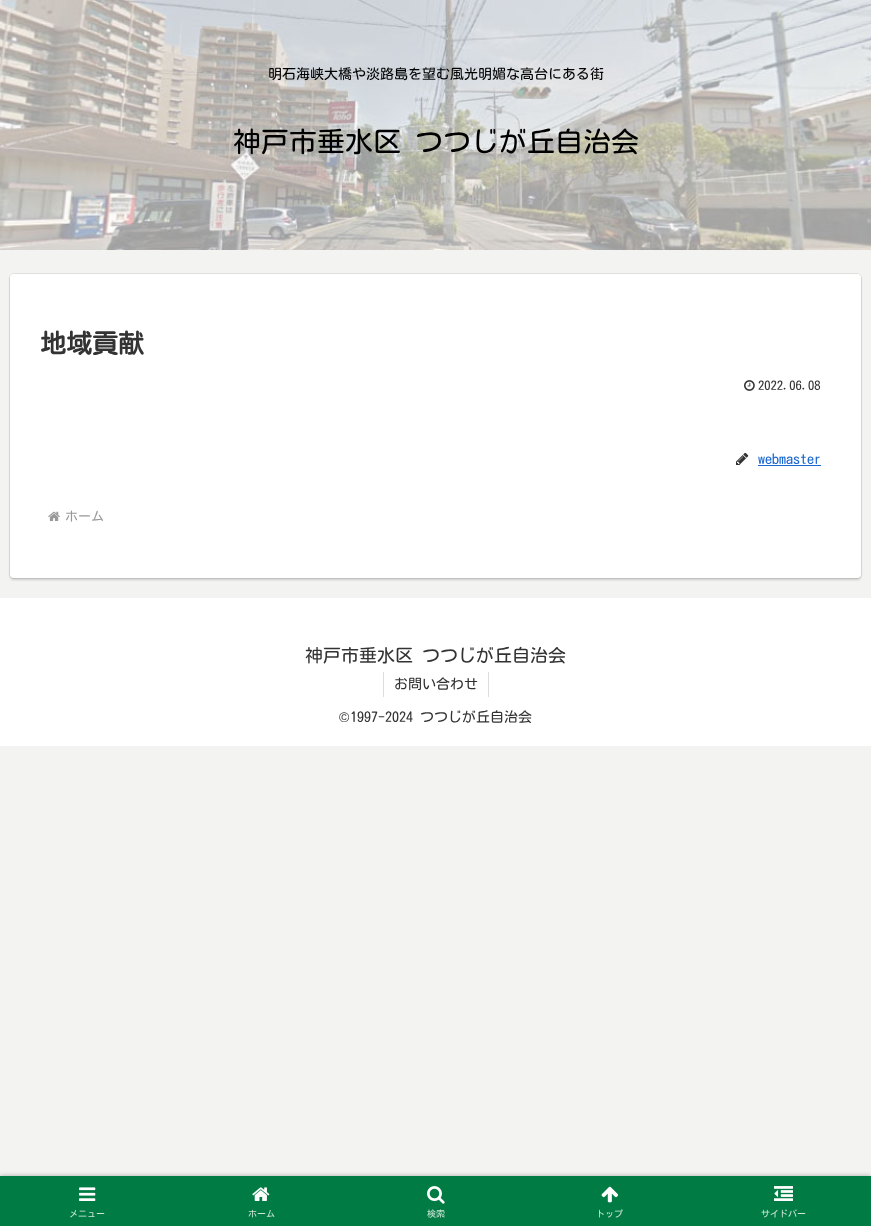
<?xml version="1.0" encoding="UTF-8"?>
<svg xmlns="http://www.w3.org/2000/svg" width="871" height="1226">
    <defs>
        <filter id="blur1" x="-50%" y="-200%" width="200%" height="500%"><feGaussianBlur stdDeviation="1"/></filter>
        <filter id="blur2" x="-50%" y="-200%" width="200%" height="500%"><feGaussianBlur stdDeviation="2.5"/></filter>
    </defs>
    <rect width="100%" height="100%" fill="#F3F3F2"/>
    <image x="0" y="0" width="871" height="250" href="img_01.png"/>
    <text x="268" y="79" font-family="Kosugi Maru" font-size="14" fill="#000000">明石海峡大橋や淡路島を望む風光明媚な高台にある街</text>
    <text x="233" y="152" font-family="Kosugi Maru" font-size="28" fill="#000000">神戸市垂水区 つつじが丘自治会</text>
    <rect x="9.5" y="273.5" width="852" height="305" rx="4.5" fill="none" stroke="#E0E0DF"/>
    <rect x="10" y="276" width="851" height="304" rx="4" fill="#000000" fill-opacity="0.16" filter="url(#blur1)"/>
    <rect x="10" y="274" width="851" height="304" rx="4" fill="#FFFFFF"/>
    <text x="40" y="353" font-family="Kosugi Maru" font-size="26" font-weight="700" fill="#333333">地域貢献</text>
    <image x="744" y="380" width="11" height="11" href="img_02.png"/>
    <text x="758" y="390" font-family="Kosugi Maru" font-size="12.5" fill="#333333">2022.06.08</text>
    <image x="736" y="452" width="13" height="13" href="img_03.png"/>
    <text x="758" y="464" font-family="Kosugi Maru" font-size="14" fill="#1967D2">webmaster</text>
    <rect x="758" y="465" width="63" height="1" fill="#1967D2"/>
    <image x="48" y="511" width="12" height="10" href="img_04.png"/>
    <text x="65" y="521" font-family="Kosugi Maru" font-size="13" fill="#999999">ホーム</text>
    <rect x="0" y="598" width="871" height="148" fill="#FFFFFF"/>
    <text x="305" y="662" font-family="Kosugi Maru" font-size="18" fill="#333333">神戸市垂水区 つつじが丘自治会</text>
    <rect x="488" y="672" width="1" height="25" fill="#DDDDDD"/>
    <rect x="383" y="672" width="1" height="25" fill="#DDDDDD"/>
    <text x="394" y="689" font-family="Kosugi Maru" font-size="14" fill="#333333">お問い合わせ</text>
    <text x="339" y="722" font-family="Liberation Sans" font-size="14" fill="#333333">©</text>
    <text x="350" y="722" font-family="Kosugi Maru" font-size="14" fill="#333333">1997-2024 つつじが丘自治会</text>
    <rect x="0" y="1176" width="871" height="50" fill="#A9A9A9" filter="url(#blur2)"/>
    <rect x="0" y="1176" width="871" height="50" fill="#007B43"/>
    <image x="79" y="1187" width="17" height="14" href="img_05.png"/>
    <text x="69" y="1217" font-family="Kosugi Maru" font-size="9" fill="#CCE5D9">メニュー</text>
    <image x="252" y="1187" width="18" height="14" href="img_06.png"/>
    <text x="248" y="1217" font-family="Kosugi Maru" font-size="9" fill="#CCE5D9">ホーム</text>
    <image x="427" y="1186" width="18" height="18" href="img_07.png"/>
    <text x="427" y="1217" font-family="Kosugi Maru" font-size="9" fill="#CCE5D9">検索</text>
    <image x="601" y="1186" width="17" height="17" href="img_08.png"/>
    <text x="596" y="1217" font-family="Kosugi Maru" font-size="9" fill="#CCE5D9">トップ</text>
    <image x="774" y="1186" width="19" height="15" href="img_09.png"/>
    <text x="761" y="1217" font-family="Kosugi Maru" font-size="9" fill="#CCE5D9">サイドバー</text>
</svg>
